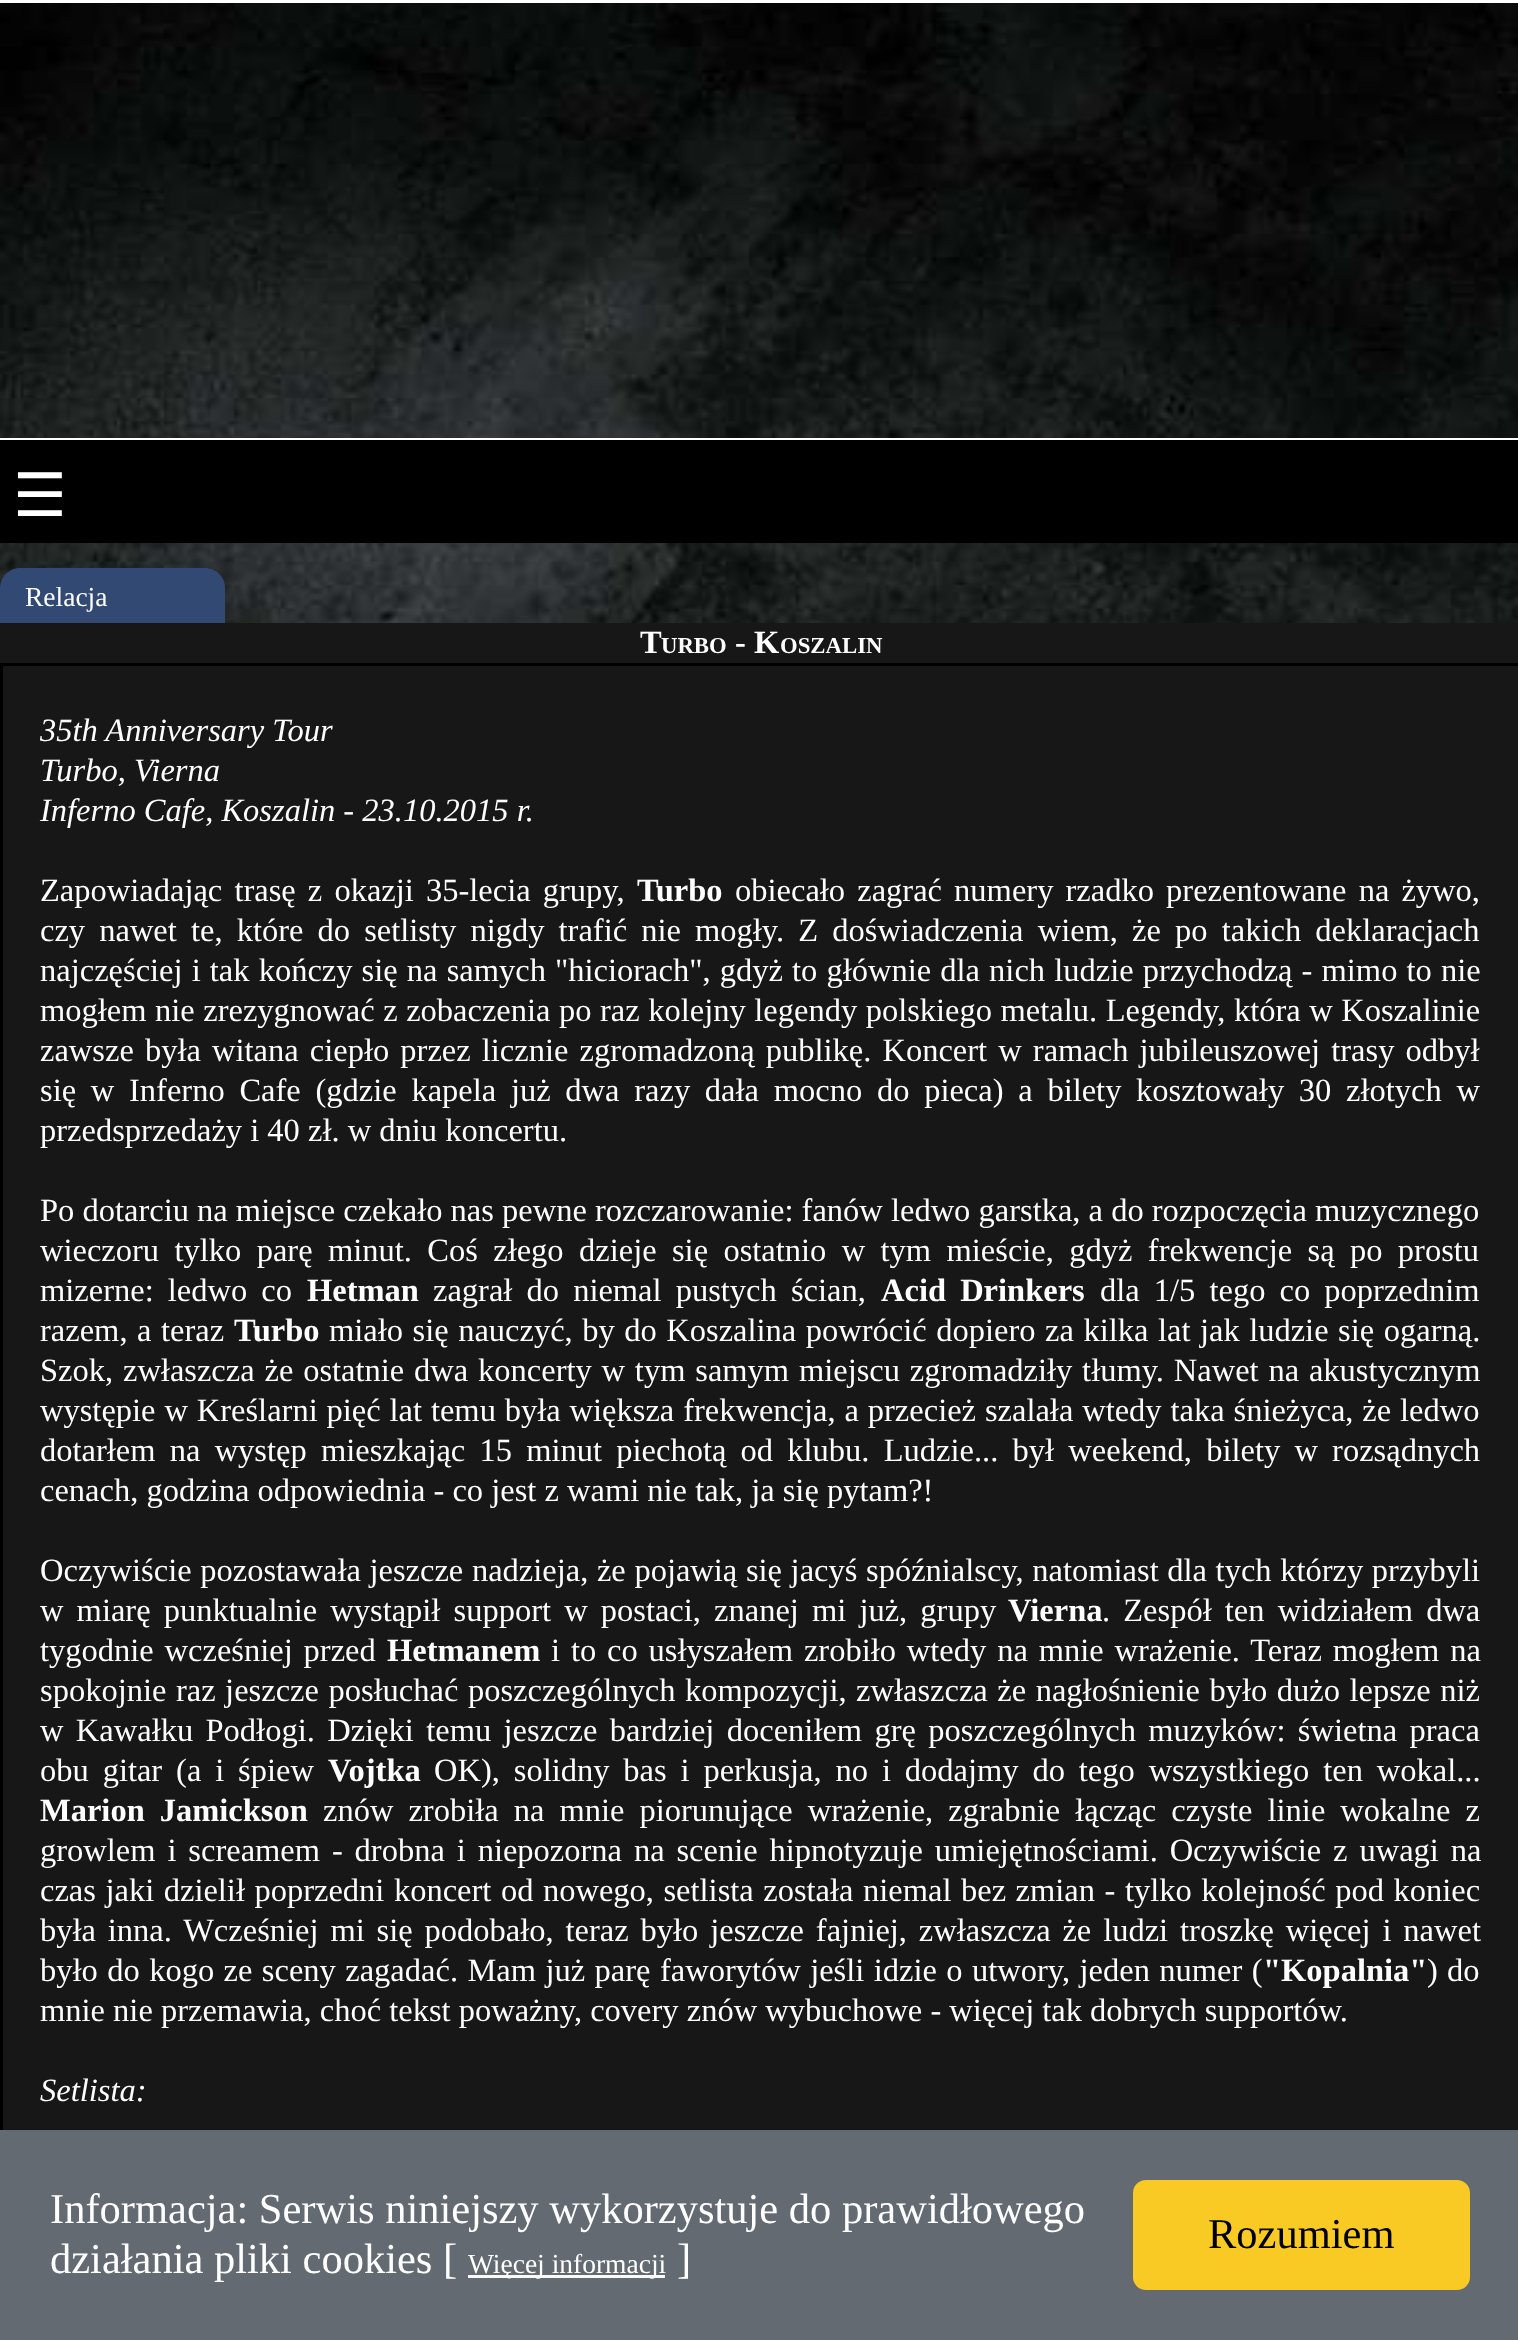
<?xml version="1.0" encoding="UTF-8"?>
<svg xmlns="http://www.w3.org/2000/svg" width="1518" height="2340">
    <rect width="100%" height="100%" fill="#FFFFFF"/>
    <image x="0" y="3" width="1518" height="620" href="img_01.png"/>
    <rect x="0" y="438" width="1518" height="2" fill="#FFFFFF"/>
    <rect x="0" y="440" width="1518" height="103" fill="#000000"/>
    <text x="13" y="516" font-family="DejaVu Sans" font-size="60" fill="#FFFFFF">☰</text>
    <path d="M 20 568 H 205 C 216 568 225 577 225 588 V 623 H 0 V 588 C 0 577 9 568 20 568 Z" fill="#324974"/>
    <text x="25" y="606" font-family="Liberation Serif" font-size="27.5" fill="#FFFFFF">Relacja</text>
    <rect x="0" y="623" width="1518" height="1507" fill="#171717"/>
    <text x="640" y="653" font-family="Liberation Serif" font-size="32.5" font-weight="700" fill="#FFFFFF">T</text>
    <text x="661" y="653" font-family="Liberation Serif" font-size="22.75" font-weight="700" fill="#FFFFFF">URBO</text>
    <text x="735" y="653" font-family="Liberation Serif" font-size="32.5" font-weight="700" fill="#FFFFFF">- K</text>
    <text x="780" y="653" font-family="Liberation Serif" font-size="22.75" font-weight="700" fill="#FFFFFF">OSZALIN</text>
    <rect x="0" y="663" width="1518" height="3" fill="#000000"/>
    <rect x="0" y="663" width="3" height="1467" fill="#000000"/>
    <text font-family="Liberation Serif" font-size="32.5" font-style="italic" fill="#FFFFFF">
        <tspan x="40" y="741">35th Anniversary Tour</tspan>
        <tspan x="40" y="781">Turbo, Vierna</tspan>
        <tspan x="40" y="821">Inferno Cafe, Koszalin - 23.10.2015 r.</tspan>
    </text>
    <text x="40" y="901" word-spacing="4" font-family="Liberation Serif" font-size="32.5" fill="#FFFFFF">Zapowiadając trasę z okazji 35-lecia grupy,</text>
    <text x="637" y="901" font-family="Liberation Serif" font-size="32.5" font-weight="700" fill="#FFFFFF">Turbo</text>
    <text x="735" y="901" word-spacing="4" font-family="Liberation Serif" font-size="32.5" fill="#FFFFFF">obiecało zagrać numery rzadko prezentowane na żywo,</text>
    <text font-family="Liberation Serif" font-size="32.5" fill="#FFFFFF">
        <tspan x="40" y="941" word-spacing="6">czy nawet te, które do setlisty nigdy trafić nie mogły. Z doświadczenia wiem, że po takich deklaracjach</tspan>
        <tspan x="40" y="981" word-spacing="1">najczęściej i tak kończy się na samych "hiciorach", gdyż to głównie dla nich ludzie przychodzą - mimo to nie</tspan>
        <tspan x="40" y="1021" word-spacing="0.4">mogłem nie zrezygnować z zobaczenia po raz kolejny legendy polskiego metalu. Legendy, która w Koszalinie</tspan>
        <tspan x="40" y="1061" word-spacing="3">zawsze była witana ciepło przez licznie zgromadzoną publikę. Koncert w ramach jubileuszowej trasy odbył</tspan>
        <tspan x="40" y="1101" word-spacing="6.6">się w Inferno Cafe (gdzie kapela już dwa razy dała mocno do pieca) a bilety kosztowały 30 złotych w</tspan>
        <tspan x="40" y="1141">przedsprzedaży i 40 zł. w dniu koncertu.</tspan>
    </text>
    <text font-family="Liberation Serif" font-size="32.5" fill="#FFFFFF">
        <tspan x="40" y="1221">Po dotarciu na miejsce czekało nas pewne rozczarowanie: fanów ledwo garstka, a do rozpoczęcia muzycznego</tspan>
        <tspan x="40" y="1261" word-spacing="7.25">wieczoru tylko parę minut. Coś złego dzieje się ostatnio w tym mieście, gdyż frekwencje są po prostu</tspan>
        <tspan x="40" y="1301" word-spacing="6">mizerne: ledwo co</tspan>
    </text>
    <text x="307" y="1301" font-family="Liberation Serif" font-size="32.5" font-weight="700" fill="#FFFFFF">Hetman</text>
    <text x="433" y="1301" word-spacing="6" font-family="Liberation Serif" font-size="32.5" fill="#FFFFFF">zagrał do niemal pustych ścian,</text>
    <text x="881" y="1301" word-spacing="6" font-family="Liberation Serif" font-size="32.5" font-weight="700" fill="#FFFFFF">Acid Drinkers</text>
    <text x="1100" y="1301" word-spacing="6" font-family="Liberation Serif" font-size="32.5" fill="#FFFFFF">dla 1/5 tego co poprzednim</text>
    <text x="40" y="1341" word-spacing="1.4" font-family="Liberation Serif" font-size="32.5" fill="#FFFFFF">razem, a teraz</text>
    <text x="234" y="1341" font-family="Liberation Serif" font-size="32.5" font-weight="700" fill="#FFFFFF">Turbo</text>
    <text x="329" y="1341" word-spacing="1.4" font-family="Liberation Serif" font-size="32.5" fill="#FFFFFF">miało się nauczyć, by do Koszalina powrócić dopiero za kilka lat jak ludzie się ogarną.</text>
    <text font-family="Liberation Serif" font-size="32.5" fill="#FFFFFF">
        <tspan x="40" y="1381" word-spacing="1.7">Szok, zwłaszcza że ostatnie dwa koncerty w tym samym miejscu zgromadziły tłumy. Nawet na akustycznym</tspan>
        <tspan x="40" y="1421" word-spacing="0.75">występie w Kreślarni pięć lat temu była większa frekwencja, a przecież szalała wtedy taka śnieżyca, że ledwo</tspan>
        <tspan x="40" y="1461" word-spacing="6.1">dotarłem na występ mieszkając 15 minut piechotą od klubu. Ludzie... był weekend, bilety w rozsądnych</tspan>
        <tspan x="40" y="1501">cenach, godzina odpowiednia - co jest z wami nie tak, ja się pytam?!</tspan>
    </text>
    <text font-family="Liberation Serif" font-size="32.5" fill="#FFFFFF">
        <tspan x="40" y="1581" word-spacing="0.5">Oczywiście pozostawała jeszcze nadzieja, że pojawią się jacyś spóźnialscy, natomiast dla tych którzy przybyli</tspan>
        <tspan x="40" y="1621" word-spacing="5">w miarę punktualnie wystąpił support w postaci, znanej mi już, grupy</tspan>
    </text>
    <text x="1008" y="1621" font-family="Liberation Serif" font-size="32.5" font-weight="700" fill="#FFFFFF">Vierna</text>
    <text x="1102" y="1621" word-spacing="5" font-family="Liberation Serif" font-size="32.5" fill="#FFFFFF">. Zespół ten widziałem dwa</text>
    <text x="40" y="1661" word-spacing="2.75" font-family="Liberation Serif" font-size="32.5" fill="#FFFFFF">tygodnie wcześniej przed</text>
    <text x="387" y="1661" font-family="Liberation Serif" font-size="32.5" font-weight="700" fill="#FFFFFF">Hetmanem</text>
    <text x="551" y="1661" word-spacing="2.75" font-family="Liberation Serif" font-size="32.5" fill="#FFFFFF">i to co usłyszałem zrobiło wtedy na mnie wrażenie. Teraz mogłem na</text>
    <text font-family="Liberation Serif" font-size="32.5" fill="#FFFFFF">
        <tspan x="40" y="1701" word-spacing="1.4">spokojnie raz jeszcze posłuchać poszczególnych kompozycji, zwłaszcza że nagłośnienie było dużo lepsze niż</tspan>
        <tspan x="40" y="1741" word-spacing="4.25">w Kawałku Podłogi. Dzięki temu jeszcze bardziej doceniłem grę poszczególnych muzyków: świetna praca</tspan>
        <tspan x="40" y="1781" word-spacing="5.75">obu gitar (a i śpiew</tspan>
    </text>
    <text x="328" y="1781" font-family="Liberation Serif" font-size="32.5" font-weight="700" fill="#FFFFFF">Vojtka</text>
    <text x="434" y="1781" word-spacing="5.75" font-family="Liberation Serif" font-size="32.5" fill="#FFFFFF">OK), solidny bas i perkusja, no i dodajmy do tego wszystkiego ten wokal...</text>
    <text x="40" y="1821" word-spacing="6.9" font-family="Liberation Serif" font-size="32.5" font-weight="700" fill="#FFFFFF">Marion Jamickson</text>
    <text x="323" y="1821" word-spacing="6.9" font-family="Liberation Serif" font-size="32.5" fill="#FFFFFF">znów zrobiła na mnie piorunujące wrażenie, zgrabnie łącząc czyste linie wokalne z</text>
    <text font-family="Liberation Serif" font-size="32.5" fill="#FFFFFF">
        <tspan x="40" y="1861" word-spacing="3.75">growlem i screamem - drobna i niepozorna na scenie hipnotyzuje umiejętnościami. Oczywiście z uwagi na</tspan>
        <tspan x="40" y="1901" word-spacing="1.4">czas jaki dzielił poprzedni koncert od nowego, setlista została niemal bez zmian - tylko kolejność pod koniec</tspan>
        <tspan x="40" y="1941" word-spacing="3.75">była inna. Wcześniej mi się podobało, teraz było jeszcze fajniej, zwłaszcza że ludzi troszkę więcej i nawet</tspan>
        <tspan x="40" y="1981" word-spacing="1.3">było do kogo ze sceny zagadać. Mam już parę faworytów jeśli idzie o utwory, jeden numer (</tspan>
    </text>
    <text x="1263" y="1981" font-family="Liberation Serif" font-size="32.5" font-weight="700" fill="#FFFFFF">"Kopalnia"</text>
    <text x="1427" y="1981" word-spacing="1" font-family="Liberation Serif" font-size="32.5" fill="#FFFFFF">) do</text>
    <text x="40" y="2021" font-family="Liberation Serif" font-size="32.5" fill="#FFFFFF">mnie nie przemawia, choć tekst poważny, covery znów wybuchowe - więcej tak dobrych supportów.</text>
    <text x="40" y="2101" font-family="Liberation Serif" font-size="32.5" font-style="italic" fill="#FFFFFF">Setlista:</text>
    <rect x="0" y="2130" width="1518" height="210" fill="#636A71"/>
    <text font-family="Liberation Serif" font-size="42.5" fill="#FFFFFF">
        <tspan x="50" y="2223">Informacja: Serwis niniejszy wykorzystuje do prawidłowego</tspan>
        <tspan x="50" y="2273">działania pliki cookies [</tspan>
    </text>
    <rect x="468" y="2275" width="197" height="3" fill="#FAFAFA"/>
    <text x="468" y="2273" font-family="Liberation Serif" font-size="27.5" fill="#FFFFFF">Więcej informacji</text>
    <text x="677" y="2273" font-family="Liberation Serif" font-size="42.5" fill="#FFFFFF">]</text>
    <rect x="1133" y="2180" width="337" height="110" rx="13" fill="#F9CA24"/>
    <text x="1208" y="2248" font-family="Liberation Serif" font-size="42.5" fill="#000000">Rozumiem</text>
</svg>
